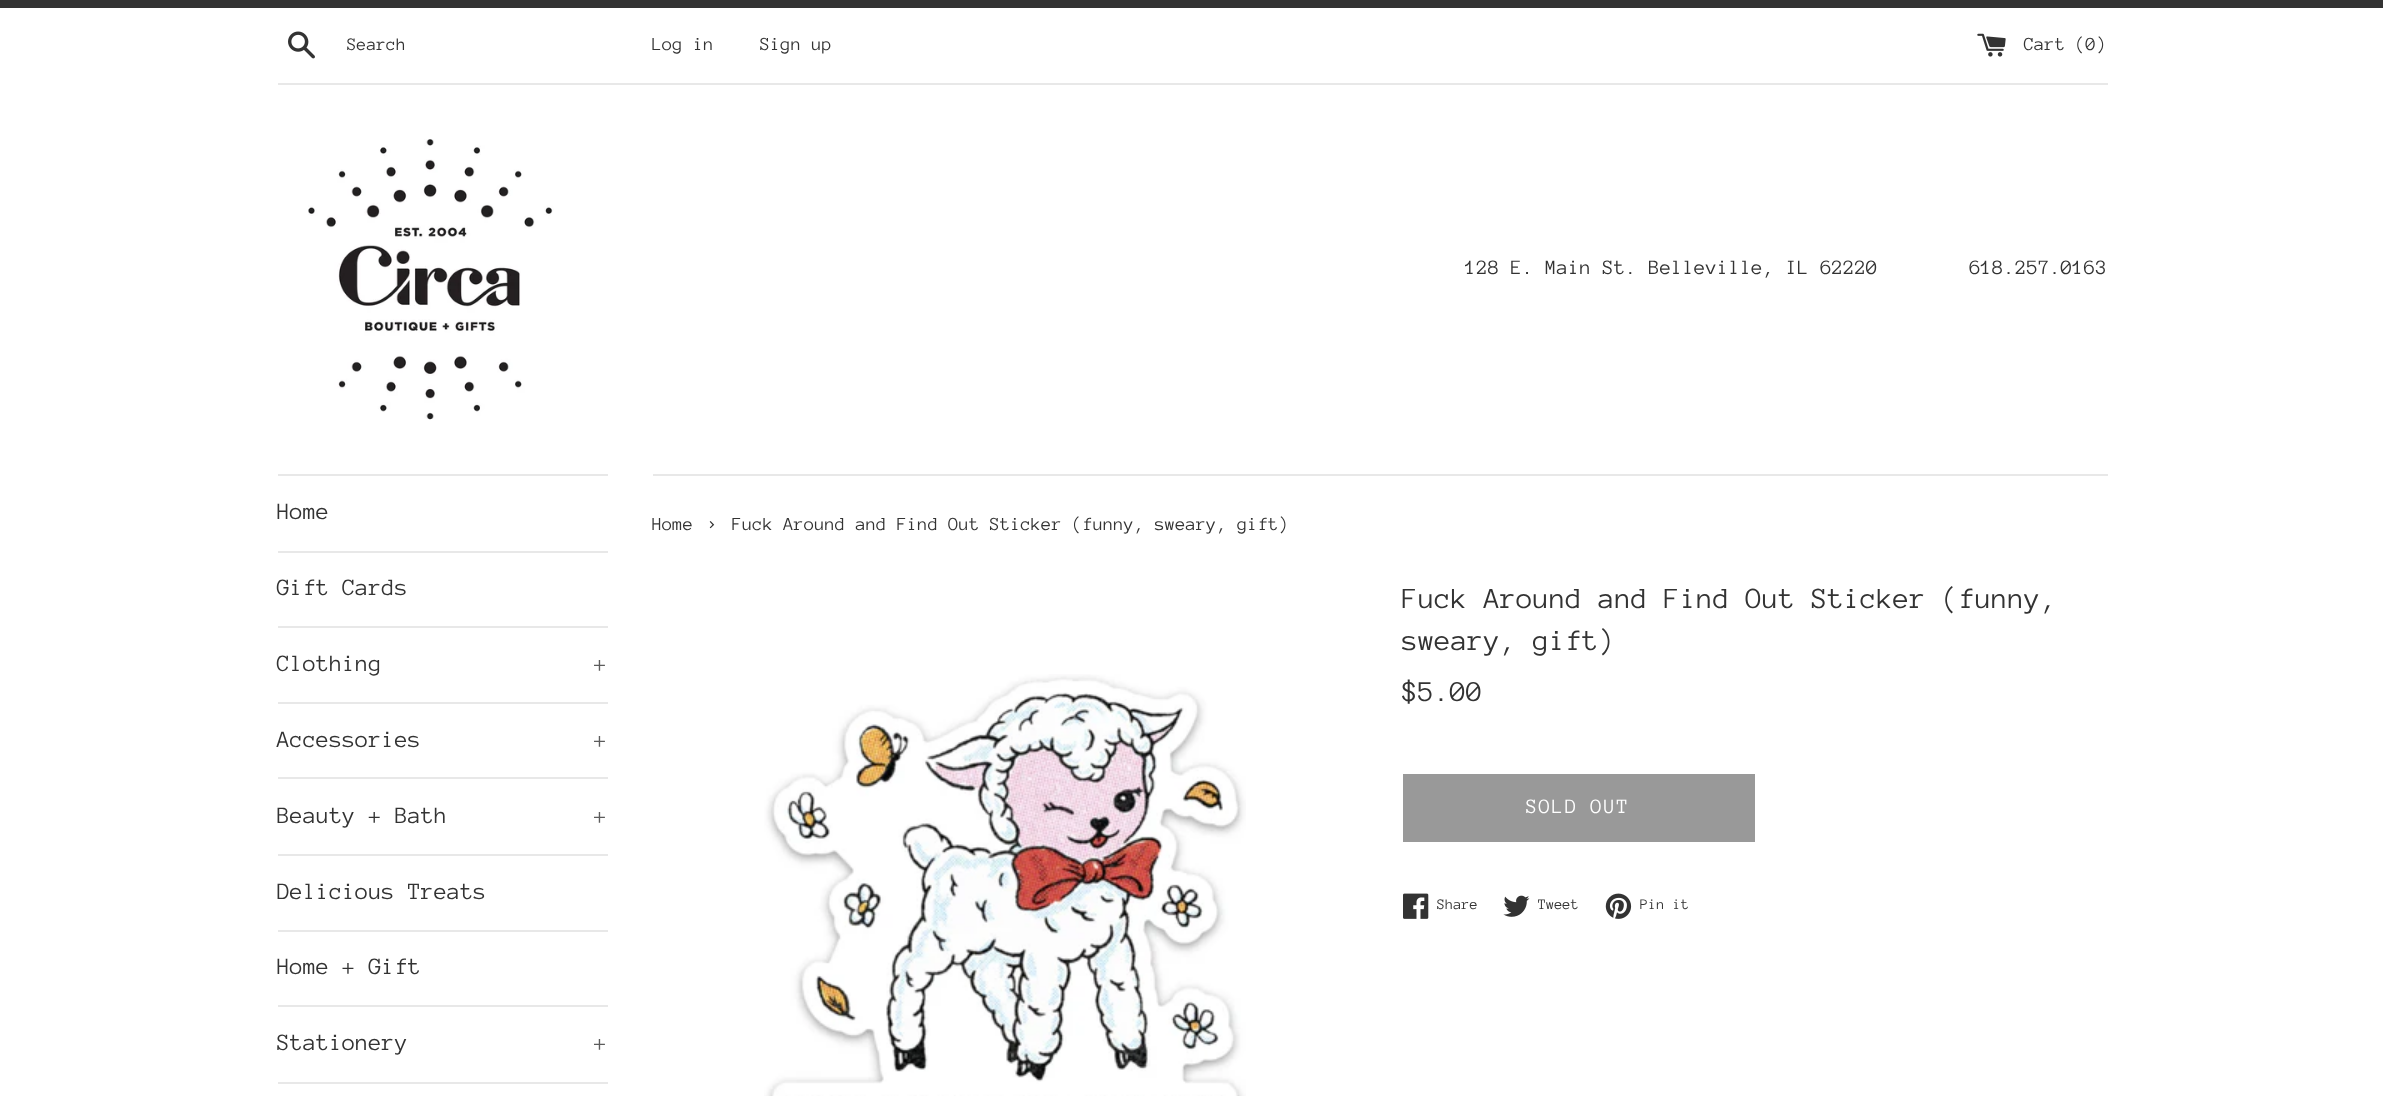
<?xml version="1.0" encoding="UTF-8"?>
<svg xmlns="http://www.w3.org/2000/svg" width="2383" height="1096">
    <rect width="100%" height="100%" fill="#FFFFFF"/>
    <rect x="0" y="0" width="2383" height="8" fill="#333333"/>
    <image x="288" y="31" width="27" height="28" href="img_01.png"/>
    <text x="347" y="50" font-family="Anonymous Pro" font-size="18" fill="#333333">Search</text>
    <text x="652" y="50" font-family="Anonymous Pro" font-size="18.9" fill="#333333">Log in</text>
    <text x="760" y="50" font-family="Anonymous Pro" font-size="18.9" fill="#333333">Sign up</text>
    <image x="1977" y="33" width="29" height="24" href="img_02.png"/>
    <text x="2024" y="50" font-family="Anonymous Pro" font-size="18.9" fill="#333333">Cart (0)</text>
    <rect x="278" y="83" width="1830" height="2" fill="#E8E8E8"/>
    <image x="308" y="139" width="246" height="281" href="img_03.png"/>
    <text x="1465" y="274" font-family="Anonymous Pro" font-size="21" fill="#333333" xml:space="preserve">128 E. Main St. Belleville, IL 62220        618.257.0163</text>
    <rect x="278" y="474" width="330" height="2" fill="#E8E8E8"/>
    <rect x="278" y="551" width="330" height="2" fill="#E8E8E8"/>
    <text x="277" y="519" font-family="Anonymous Pro" font-size="24" fill="#333333">Home</text>
    <rect x="278" y="626" width="330" height="2" fill="#E8E8E8"/>
    <text x="277" y="595" font-family="Anonymous Pro" font-size="24" fill="#333333">Gift Cards</text>
    <rect x="278" y="702" width="330" height="2" fill="#E8E8E8"/>
    <text x="277" y="671" font-family="Anonymous Pro" font-size="24" fill="#333333">Clothing</text>
    <text x="594" y="671" font-family="Anonymous Pro" font-size="24" fill="#5C5C5C">+</text>
    <rect x="278" y="777" width="330" height="2" fill="#E8E8E8"/>
    <text x="277" y="747" font-family="Anonymous Pro" font-size="24" fill="#333333">Accessories</text>
    <text x="594" y="747" font-family="Anonymous Pro" font-size="24" fill="#5C5C5C">+</text>
    <rect x="278" y="854" width="330" height="2" fill="#E8E8E8"/>
    <text x="277" y="823" font-family="Anonymous Pro" font-size="24" fill="#333333">Beauty + Bath</text>
    <text x="594" y="823" font-family="Anonymous Pro" font-size="24" fill="#5C5C5C">+</text>
    <rect x="278" y="930" width="330" height="2" fill="#E8E8E8"/>
    <text x="277" y="899" font-family="Anonymous Pro" font-size="24" fill="#333333">Delicious Treats</text>
    <rect x="278" y="1005" width="330" height="2" fill="#E8E8E8"/>
    <text x="277" y="974" font-family="Anonymous Pro" font-size="24" fill="#333333">Home + Gift</text>
    <rect x="278" y="1082" width="330" height="2" fill="#E8E8E8"/>
    <text x="277" y="1050" font-family="Anonymous Pro" font-size="24" fill="#333333">Stationery</text>
    <text x="594" y="1050" font-family="Anonymous Pro" font-size="24" fill="#5C5C5C">+</text>
    <rect x="653" y="474" width="1455" height="2" fill="#E8E8E8"/>
    <text x="652" y="530" font-family="Anonymous Pro" font-size="18.9" fill="#333333">Home</text>
    <text x="706" y="530" font-family="Anonymous Pro" font-size="23" fill="#333333">›</text>
    <text x="732" y="530" font-family="Anonymous Pro" font-size="18.9" fill="#333333">Fuck Around and Find Out Sticker (funny, sweary, gift)</text>
    <image x="764" y="674" width="482" height="422" href="img_04.png"/>
    <text font-family="Anonymous Pro" font-size="30" fill="#333333">
        <tspan x="1402" y="608">Fuck Around and Find Out Sticker (funny,</tspan>
        <tspan x="1402" y="650">sweary, gift)</tspan>
    </text>
    <text x="1402" y="701" font-family="Anonymous Pro" font-size="29.5" fill="#333333">$5.00</text>
    <rect x="1403" y="774" width="352" height="68" fill="#999999"/>
    <text x="1526" y="813" font-family="Anonymous Pro" font-size="21" letter-spacing="1.5" fill="#FFFFFF">SOLD OUT</text>
    <image x="1403" y="893" width="26" height="26" href="img_05.png"/>
    <text x="1437" y="909" font-family="Anonymous Pro" font-size="15" fill="#333333">Share</text>
    <image x="1503" y="895" width="27" height="22" href="img_06.png"/>
    <text x="1538" y="909" font-family="Anonymous Pro" font-size="15" fill="#333333">Tweet</text>
    <image x="1605" y="893" width="27" height="26" href="img_07.png"/>
    <text x="1640" y="909" font-family="Anonymous Pro" font-size="15" fill="#333333">Pin it</text>
</svg>
